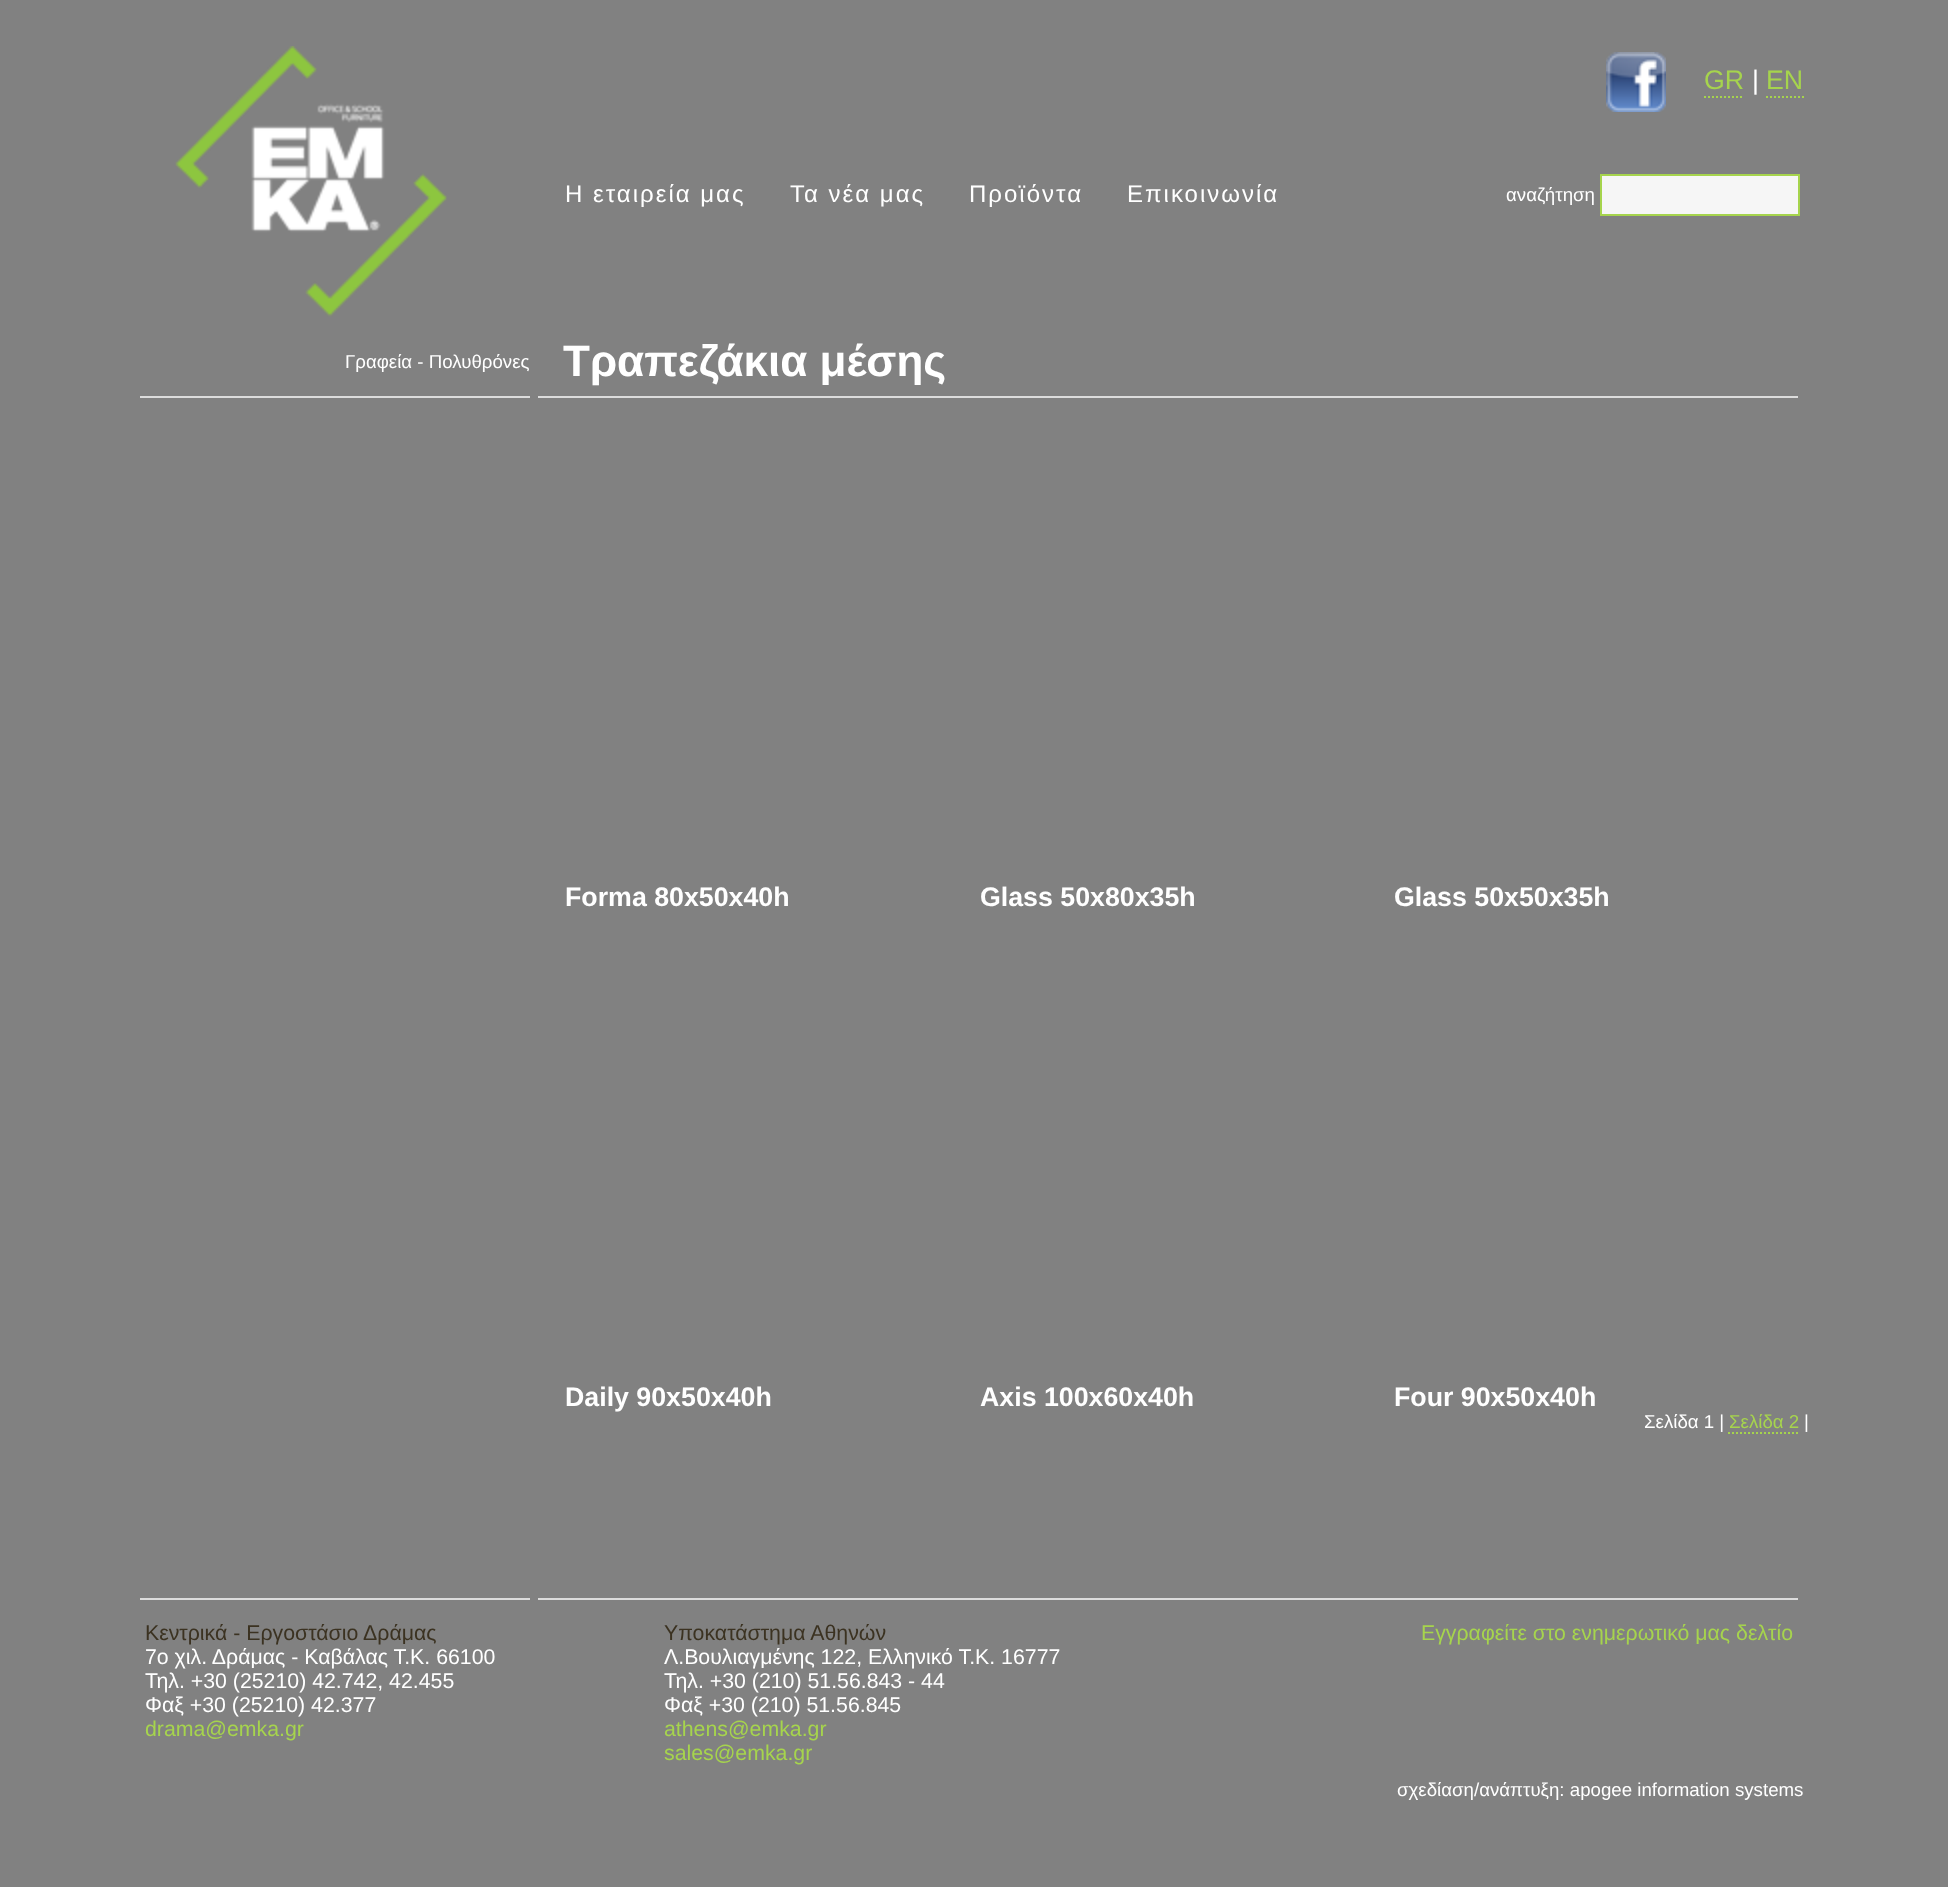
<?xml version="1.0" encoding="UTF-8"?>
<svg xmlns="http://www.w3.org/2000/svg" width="1948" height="1887">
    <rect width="100%" height="100%" fill="#818181"/>
    <image x="175" y="46" width="272" height="271" href="img_01.png"/>
    <image x="1606" y="52" width="60" height="60" href="img_02.png"/>
    <text x="1704" y="89" font-family="Liberation Sans" font-size="26.75" fill="#A6D44D">GR</text>
    <path d="M 1704 97 H 1744" fill="none" stroke="#A6D44D" stroke-width="2" stroke-dasharray="2 2"/>
    <text x="1752" y="89" font-family="Liberation Sans" font-size="26.75" fill="#FFFFFF">|</text>
    <text x="1766" y="89" font-family="Liberation Sans" font-size="26.75" fill="#A6D44D">EN</text>
    <path d="M 1766 97 H 1804" fill="none" stroke="#A6D44D" stroke-width="2" stroke-dasharray="2 2"/>
    <text x="565" y="202" font-family="Liberation Sans" font-size="24" letter-spacing="2" fill="#FFFFFF">Η εταιρεία μας</text>
    <text x="790" y="202" font-family="Liberation Sans" font-size="24" letter-spacing="2" fill="#FFFFFF">Τα νέα μας</text>
    <text x="969" y="202" font-family="Liberation Sans" font-size="24" letter-spacing="2" fill="#FFFFFF">Προϊόντα</text>
    <text x="1127" y="202" font-family="Liberation Sans" font-size="24" letter-spacing="2" fill="#FFFFFF">Επικοινωνία</text>
    <text x="1506" y="201" font-family="Liberation Sans" font-size="18.7" fill="#FFFFFF">αναζήτηση</text>
    <rect x="1601" y="175" width="198" height="40" fill="#F6F6F6" stroke="#A6D44D" stroke-width="2"/>
    <text x="345" y="368" font-family="Liberation Sans" font-size="18.7" fill="#FFFFFF">Γραφεία - Πολυθρόνες</text>
    <text x="563" y="376" font-family="Liberation Sans" font-size="44" font-weight="700" fill="#FFFFFF">Τραπεζάκια μέσης</text>
    <rect x="140" y="396" width="390" height="2" fill="#DCDCDC"/>
    <rect x="538" y="396" width="1260" height="2" fill="#DCDCDC"/>
    <text x="565" y="906" font-family="Liberation Sans" font-size="26.75" font-weight="700" fill="#FFFFFF">Forma 80x50x40h</text>
    <text x="980" y="906" font-family="Liberation Sans" font-size="26.75" font-weight="700" fill="#FFFFFF">Glass 50x80x35h</text>
    <text x="1394" y="906" font-family="Liberation Sans" font-size="26.75" font-weight="700" fill="#FFFFFF">Glass 50x50x35h</text>
    <text x="565" y="1406" font-family="Liberation Sans" font-size="26.75" font-weight="700" fill="#FFFFFF">Daily 90x50x40h</text>
    <text x="980" y="1406" font-family="Liberation Sans" font-size="26.75" font-weight="700" fill="#FFFFFF">Axis 100x60x40h</text>
    <text x="1394" y="1406" font-family="Liberation Sans" font-size="26.75" font-weight="700" fill="#FFFFFF">Four 90x50x40h</text>
    <text x="1644" y="1428" font-family="Liberation Sans" font-size="18.7" fill="#FFFFFF">Σελίδα 1 |</text>
    <text x="1729" y="1428" font-family="Liberation Sans" font-size="18.7" fill="#A6D44D">Σελίδα 2</text>
    <path d="M 1728 1433 H 1798" fill="none" stroke="#A6D44D" stroke-width="2" stroke-dasharray="2 2"/>
    <text x="1804" y="1428" font-family="Liberation Sans" font-size="18.7" fill="#FFFFFF">|</text>
    <rect x="140" y="1598" width="390" height="2" fill="#DCDCDC"/>
    <rect x="538" y="1598" width="1260" height="2" fill="#DCDCDC"/>
    <text x="145" y="1640" font-family="Liberation Sans" font-size="21.3" fill="#3B3221">Κεντρικά - Εργοστάσιο Δράμας</text>
    <text font-family="Liberation Sans" font-size="21.3" fill="#FFFFFF">
        <tspan x="145" y="1664">7ο χιλ. Δράμας - Καβάλας Τ.Κ. 66100</tspan>
        <tspan x="145" y="1688">Τηλ. +30 (25210) 42.742, 42.455</tspan>
        <tspan x="145" y="1712">Φαξ +30 (25210) 42.377</tspan>
    </text>
    <text x="145" y="1736" font-family="Liberation Sans" font-size="21.3" fill="#A6D44D">drama@emka.gr</text>
    <text x="664" y="1640" font-family="Liberation Sans" font-size="21.3" fill="#3B3221">Υποκατάστημα Αθηνών</text>
    <text font-family="Liberation Sans" font-size="21.3" fill="#FFFFFF">
        <tspan x="664" y="1664">Λ.Βουλιαγμένης 122, Ελληνικό Τ.Κ. 16777</tspan>
        <tspan x="664" y="1688">Τηλ. +30 (210) 51.56.843 - 44</tspan>
        <tspan x="664" y="1712">Φαξ +30 (210) 51.56.845</tspan>
    </text>
    <text font-family="Liberation Sans" font-size="21.3" fill="#A6D44D">
        <tspan x="664" y="1736">athens@emka.gr</tspan>
        <tspan x="664" y="1760">sales@emka.gr</tspan>
    </text>
    <text x="1421" y="1640" font-family="Liberation Sans" font-size="21.3" fill="#A6D44D">Εγγραφείτε στο ενημερωτικό μας δελτίο</text>
    <text x="1397" y="1796" font-family="Liberation Sans" font-size="18.7" fill="#FFFFFF">σχεδίαση/ανάπτυξη: apogee information systems</text>
</svg>
